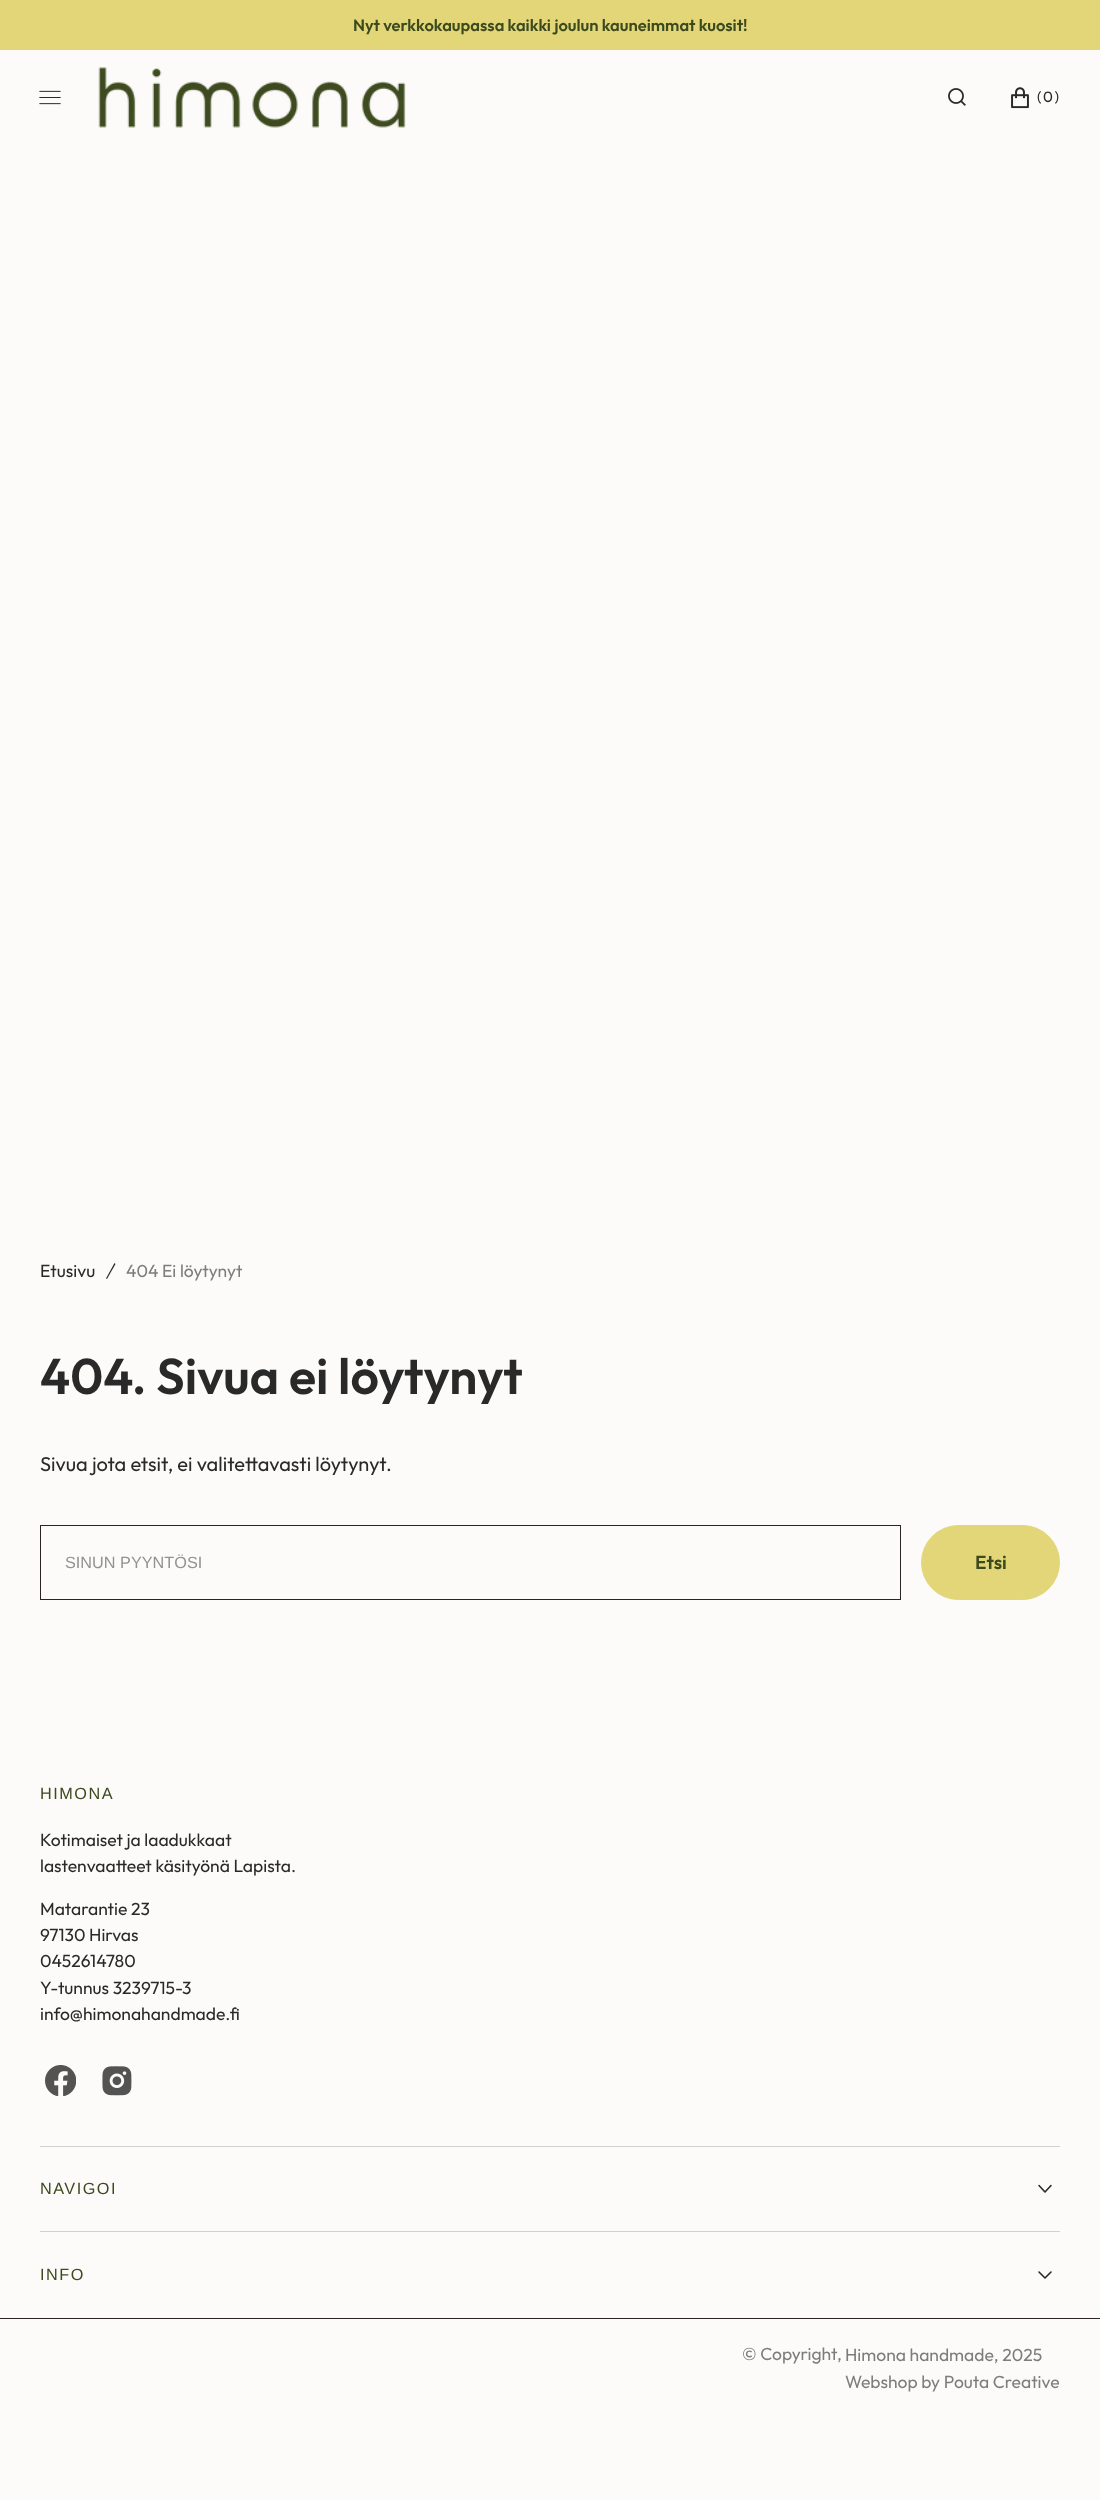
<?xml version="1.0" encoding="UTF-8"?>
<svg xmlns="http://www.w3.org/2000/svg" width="1100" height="2500">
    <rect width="100%" height="100%" fill="#FCFBF9"/>
    <rect x="0" y="0" width="1100" height="50" fill="#E2D679"/>
    <text x="353" y="31" font-family="Outfit" font-size="16.5" font-weight="600" fill="#3D4A1E">Nyt verkkokaupassa kaikki joulun kauneimmat kuosit!</text>
    <image x="39" y="90" width="22" height="15" href="img_01.png"/>
    <image x="98" y="67" width="308" height="61" href="img_02.png"/>
    <image x="948" y="88" width="18" height="18" href="img_03.png"/>
    <image x="1011" y="87" width="18" height="22" href="img_04.png"/>
    <text x="1037" y="102" font-family="Outfit" font-size="15" letter-spacing="1.5" fill="#292929">(0)</text>
    <text x="40" y="1277" font-family="Outfit" font-size="17.5" fill="#292929">Etusivu</text>
    <path d="M 114.5 1263 L 115.5 1264 L 107 1279 L 106 1278.5 Z" fill="#292929"/>
    <text x="126" y="1277" font-family="Outfit" font-size="17.5" fill="#7D7D7C">404 Ei löytynyt</text>
    <text x="40" y="1394" font-family="Outfit" font-size="50" font-weight="600" fill="#292929">404. Sivua ei löytynyt</text>
    <text x="40" y="1471" font-family="Outfit" font-size="20" fill="#292929">Sivua jota etsit, ei valitettavasti löytynyt.</text>
    <rect x="40.5" y="1525.5" width="860" height="74" fill="none" stroke="#2B2423"/>
    <text x="65" y="1568" font-family="Liberation Sans" font-size="16.25" fill="#939291">SINUN PYYNTÖSI</text>
    <rect x="921.5" y="1525.5" width="138" height="74" rx="37" fill="#E2D679" stroke="#E2D679"/>
    <text x="975" y="1569" font-family="Outfit" font-size="19" font-weight="600" fill="#3D4A1E">Etsi</text>
    <text x="40" y="1799" font-family="Liberation Sans" font-size="16.25" letter-spacing="1.5" fill="#3D4A1E">HIMONA</text>
    <text font-family="Outfit" font-size="17.5" fill="#292929">
        <tspan x="40" y="1846">Kotimaiset ja laadukkaat</tspan>
        <tspan x="40" y="1872">lastenvaatteet käsityönä Lapista.</tspan>
    </text>
    <text font-family="Outfit" font-size="17.5" fill="#292929">
        <tspan x="40" y="1915">Matarantie 23</tspan>
        <tspan x="40" y="1941">97130 Hirvas</tspan>
        <tspan x="40" y="1967">0452614780</tspan>
        <tspan x="40" y="1994">Y-tunnus 3239715-3</tspan>
        <tspan x="40" y="2020">info@himonahandmade.fi</tspan>
    </text>
    <image x="45" y="2065" width="31" height="31" href="img_05.png"/>
    <image x="102" y="2066" width="30" height="30" href="img_06.png"/>
    <rect x="40" y="2146" width="1020" height="1" fill="#D2D1CF"/>
    <text x="40" y="2194" font-family="Liberation Sans" font-size="16.25" letter-spacing="1.5" fill="#3D4A1E">NAVIGOI</text>
    <path d="M 1051 2185.5 L 1045 2192 L 1039 2185.5" fill="none" stroke="#292929" stroke-width="1.6" stroke-linecap="round" stroke-linejoin="round"/>
    <rect x="40" y="2231" width="1020" height="1" fill="#D2D1CF"/>
    <text x="40" y="2280" font-family="Liberation Sans" font-size="16.25" letter-spacing="1.5" fill="#3D4A1E">INFO</text>
    <path d="M 1051 2272 L 1045 2278 L 1039 2272" fill="none" stroke="#292929" stroke-width="1.6" stroke-linecap="round" stroke-linejoin="round"/>
    <rect x="0" y="2318" width="1100" height="1" fill="#2B2423"/>
    <text x="742" y="2360" font-family="Outfit" font-size="17.5" fill="#7D7D7C">© Copyright,</text>
    <text font-family="Outfit" font-size="17.5" fill="#7D7D7C">
        <tspan x="845" y="2361">Himona handmade, 2025</tspan>
        <tspan x="845" y="2388">Webshop by Pouta Creative</tspan>
    </text>
</svg>
